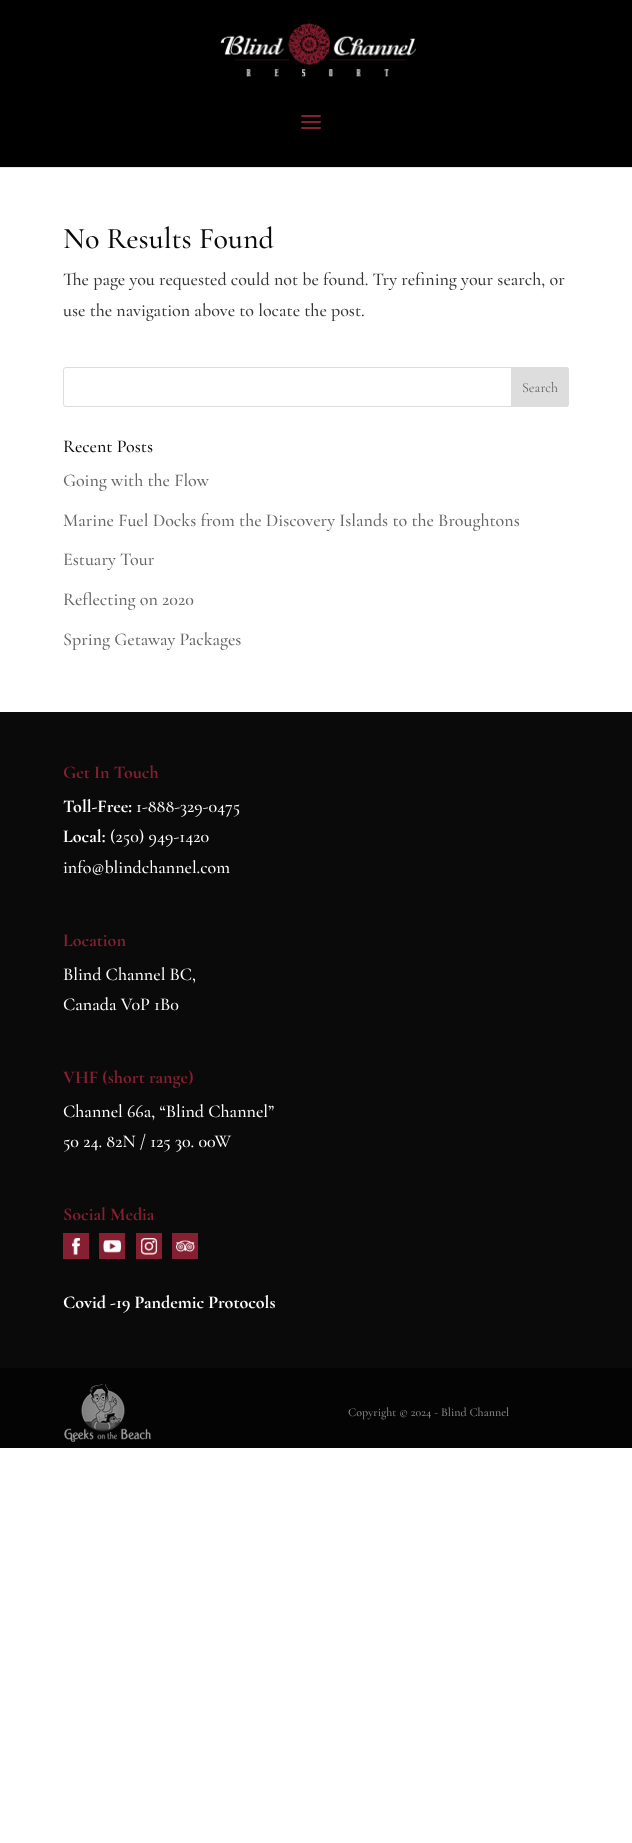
<?xml version="1.0" encoding="UTF-8"?>
<svg xmlns="http://www.w3.org/2000/svg" width="632" height="1843">
    <rect width="100%" height="100%" fill="#FFFFFF"/>
    <rect x="0" y="167" width="632" height="1" fill="#E6E6E6"/>
    <rect x="0" y="0" width="632" height="167" fill="#000000"/>
    <image x="220" y="23" width="197" height="54" href="img_01.png"/>
    <image x="301" y="115" width="20" height="14" href="img_02.png"/>
    <text x="63" y="248" font-family="Cormorant Garamond" font-size="30" font-weight="300" fill="#0A0A0A">No Results Found</text>
    <text font-family="Cormorant Garamond" font-size="18" font-weight="300" fill="#353535">
        <tspan x="63" y="285">The page you requested could not be found. Try refining your search, or</tspan>
        <tspan x="63" y="316">use the navigation above to locate the post.</tspan>
    </text>
    <rect x="63.5" y="367.5" width="505" height="39" rx="2.5" fill="none" stroke="#DDDDDD"/>
    <path d="M 511.5 367.5 H 566 C 567.5 367.5 568.5 368.5 568.5 370 V 404 C 568.5 405.5 567.5 406.5 566 406.5 H 511.5 Z" fill="#DDDDDD" stroke="#DDDDDD"/>
    <text x="522" y="392" font-family="'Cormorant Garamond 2'" font-size="14" font-weight="300" fill="#666666">Search</text>
    <text x="63" y="452" font-family="Cormorant Garamond" font-size="18" font-weight="300" fill="#0A0A0A">Recent Posts</text>
    <text x="63" y="486" font-family="Cormorant Garamond" font-size="18" font-weight="300" fill="#666666">Going with the Flow</text>
    <text x="63" y="526" font-family="Cormorant Garamond" font-size="18" font-weight="300" fill="#666666">Marine Fuel Docks from the Discovery Islands to the Broughtons</text>
    <text x="63" y="565" font-family="Cormorant Garamond" font-size="18" font-weight="300" fill="#666666">Estuary Tour</text>
    <text x="63" y="605" font-family="Cormorant Garamond" font-size="18" font-weight="300" fill="#666666">Reflecting on 2020</text>
    <text x="63" y="645" font-family="Cormorant Garamond" font-size="18" font-weight="300" fill="#666666">Spring Getaway Packages</text>
    <rect x="0" y="712" width="632" height="656" fill="#0A0A0A"/>
    <text x="63" y="778" font-family="'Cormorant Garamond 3'" font-size="18" font-weight="300" fill="#861F31">Get In Touch</text>
    <text x="63" y="812" font-family="'Cormorant Garamond 3'" font-size="18" font-weight="300" fill="#FFFFFF">Toll-Free:</text>
    <text x="136" y="812" font-family="Cormorant Garamond" font-size="18" font-weight="300" fill="#FFFFFF">1-888-329-0475</text>
    <text x="63" y="842" font-family="'Cormorant Garamond 3'" font-size="18" font-weight="300" fill="#FFFFFF">Local:</text>
    <text x="110" y="842" font-family="Cormorant Garamond" font-size="18" font-weight="300" fill="#FFFFFF">(250) 949-1420</text>
    <text x="63" y="873" font-family="Cormorant Garamond" font-size="18" font-weight="300" fill="#FFFFFF">info@blindchannel.com</text>
    <text x="63" y="946" font-family="'Cormorant Garamond 3'" font-size="18" font-weight="300" fill="#861F31">Location</text>
    <text font-family="Cormorant Garamond" font-size="18" font-weight="300" fill="#FFFFFF">
        <tspan x="63" y="980">Blind Channel BC,</tspan>
        <tspan x="63" y="1010">Canada V0P 1B0</tspan>
    </text>
    <text x="63" y="1083" font-family="'Cormorant Garamond 3'" font-size="18" font-weight="300" fill="#861F31">VHF (short range)</text>
    <text font-family="Cormorant Garamond" font-size="18" font-weight="300" fill="#FFFFFF">
        <tspan x="63" y="1117">Channel 66a, “Blind Channel”</tspan>
        <tspan x="63" y="1147">50 24. 82N / 125 30. 00W</tspan>
    </text>
    <text x="63" y="1220" font-family="'Cormorant Garamond 3'" font-size="18" font-weight="300" fill="#861F31">Social Media</text>
    <image x="63" y="1233" width="26" height="26" href="img_03.png"/>
    <image x="99" y="1233" width="26" height="26" href="img_04.png"/>
    <image x="136" y="1233" width="26" height="26" href="img_05.png"/>
    <image x="172" y="1233" width="26" height="26" href="img_06.png"/>
    <text x="63" y="1308" font-family="'Cormorant Garamond 3'" font-size="18" font-weight="300" fill="#FFFFFF">Covid -19 Pandemic Protocols</text>
    <rect x="0" y="1368" width="632" height="80" fill="#040404"/>
    <image x="64" y="1384" width="87" height="58" href="img_07.png"/>
    <text x="348" y="1416" font-family="Cormorant Garamond" font-size="12" font-weight="300" fill="#8A8A8A">Copyright © 2024 - Blind Channel</text>
</svg>
